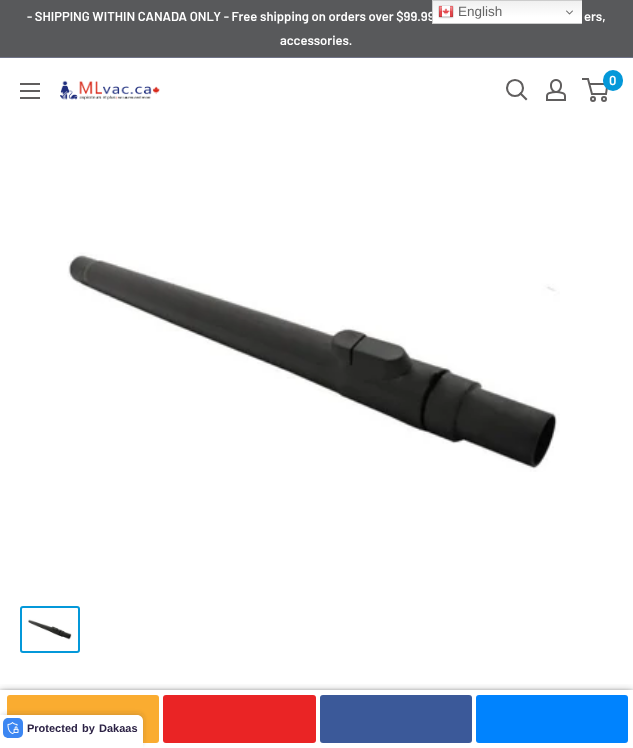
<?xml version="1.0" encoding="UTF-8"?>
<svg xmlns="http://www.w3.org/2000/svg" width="633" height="748">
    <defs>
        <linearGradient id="g1" gradientUnits="userSpaceOnUse" x1="507" y1="0" x2="507" y2="24"><stop offset="0" stop-color="#EFEFEF"/><stop offset="0.7" stop-color="#FFFFFF"/></linearGradient>
        <clipPath id="clip1"><rect x="432" y="0" width="150" height="24"/></clipPath>
        <clipPath id="clip2"><rect x="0" y="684" width="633" height="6"/></clipPath>
        <filter id="blur1" x="-50%" y="-200%" width="200%" height="500%"><feGaussianBlur stdDeviation="5"/></filter>
        <clipPath id="clip3"><rect x="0" y="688" width="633" height="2"/></clipPath>
        <filter id="blur2" x="-50%" y="-200%" width="200%" height="500%"><feGaussianBlur stdDeviation="2.5"/></filter>
        <filter id="blur3" x="-50%" y="-200%" width="200%" height="500%"><feGaussianBlur stdDeviation="2"/></filter>
    </defs>
    <rect width="100%" height="100%" fill="#58595B"/>
    <text x="27" y="21" font-family="Barlow" font-size="13" font-weight="600" fill="#FFFFFF">- SHIPPING WITHIN CANADA ONLY - Free shipping on orders over $99.99</text>
    <rect x="433" y="1" width="149" height="22" fill="url(#g1)"/>
    <g clip-path="url(#clip1)">
        <rect x="432.5" y="0.5" width="150" height="23" fill="none" stroke="#CCCCCC"/>
    </g>
    <image x="438" y="5" width="16" height="14" href="img_01.png"/>
    <text x="458" y="16" font-family="Liberation Sans" font-size="13.5" fill="#666666">English</text>
    <image x="566" y="10" width="7" height="5" href="img_02.png"/>
    <rect x="0" y="57" width="633" height="1" fill="#6F7387"/>
    <text x="584" y="21" font-family="Barlow" font-size="13" font-weight="600" fill="#FFFFFF">ers,</text>
    <text x="280" y="45" font-family="Barlow" font-size="13" font-weight="600" fill="#FFFFFF">accessories.</text>
    <rect x="0" y="58" width="633" height="690" fill="#FFFFFF"/>
    <image x="67" y="252" width="493" height="220" href="img_03.png"/>
    <rect x="21" y="607" width="58" height="45" rx="2" fill="none" stroke="#0498D9" stroke-width="2"/>
    <image x="28" y="619" width="44" height="21" href="img_04.png"/>
    <image x="20" y="83" width="20" height="16" href="img_05.png"/>
    <image x="60" y="80" width="100" height="20" href="img_06.png"/>
    <path d="M 526 99 L 520.5 93.5" fill="none" stroke="#605E5E" stroke-width="2.1" stroke-linecap="square"/>
    <circle cx="515" cy="88" r="8" fill="none" stroke="#605E5E" stroke-width="2.1"/>
    <image x="546" y="79" width="20" height="22" href="img_07.png"/>
    <circle cx="593" cy="99" r="2" fill="none" stroke="#605E5E" stroke-width="2"/>
    <circle cx="604" cy="99" r="2" fill="none" stroke="#605E5E" stroke-width="2"/>
    <path d="M 589.5 84 H 607.5 L 606 94 H 592 L 588 79 H 582" fill="none" stroke="#605E5E" stroke-width="2"/>
    <rect x="603" y="70" width="20" height="21" rx="10" fill="#0498D9"/>
    <text x="609" y="85" font-family="Barlow" font-size="13" font-weight="600" fill="#FFFFFF">0</text>
    <g clip-path="url(#clip2)">
        <rect x="0" y="692" width="633" height="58" fill="#000000" fill-opacity="0.42" filter="url(#blur1)"/>
    </g>
    <g clip-path="url(#clip3)">
        <rect x="0" y="692" width="633" height="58" fill="#000000" fill-opacity="0.46" filter="url(#blur2)"/>
    </g>
    <image x="7" y="695" width="621" height="53" href="img_08.png"/>
    <rect x="1" y="713" width="143" height="33" rx="6" fill="#403C43" fill-opacity="0.16" filter="url(#blur3)"/>
    <path d="M 0 715 H 137 C 140.5 715 143 717.5 143 721 V 748 H 0 Z" fill="#FFFFFF"/>
    <rect x="3" y="718" width="20" height="20" rx="5" fill="#3B86F2"/>
    <image x="7" y="722" width="12" height="12" href="img_09.png"/>
    <text x="27" y="732" font-family="Liberation Sans" font-size="11" font-weight="700" fill="#2C2245">Protected</text>
    <text x="82" y="732" font-family="Liberation Sans" font-size="11" font-weight="700" fill="#2C2245">by</text>
    <text x="99" y="732" font-family="Liberation Sans" font-size="11" font-weight="700" fill="#2C2245">Dakaas</text>
</svg>
